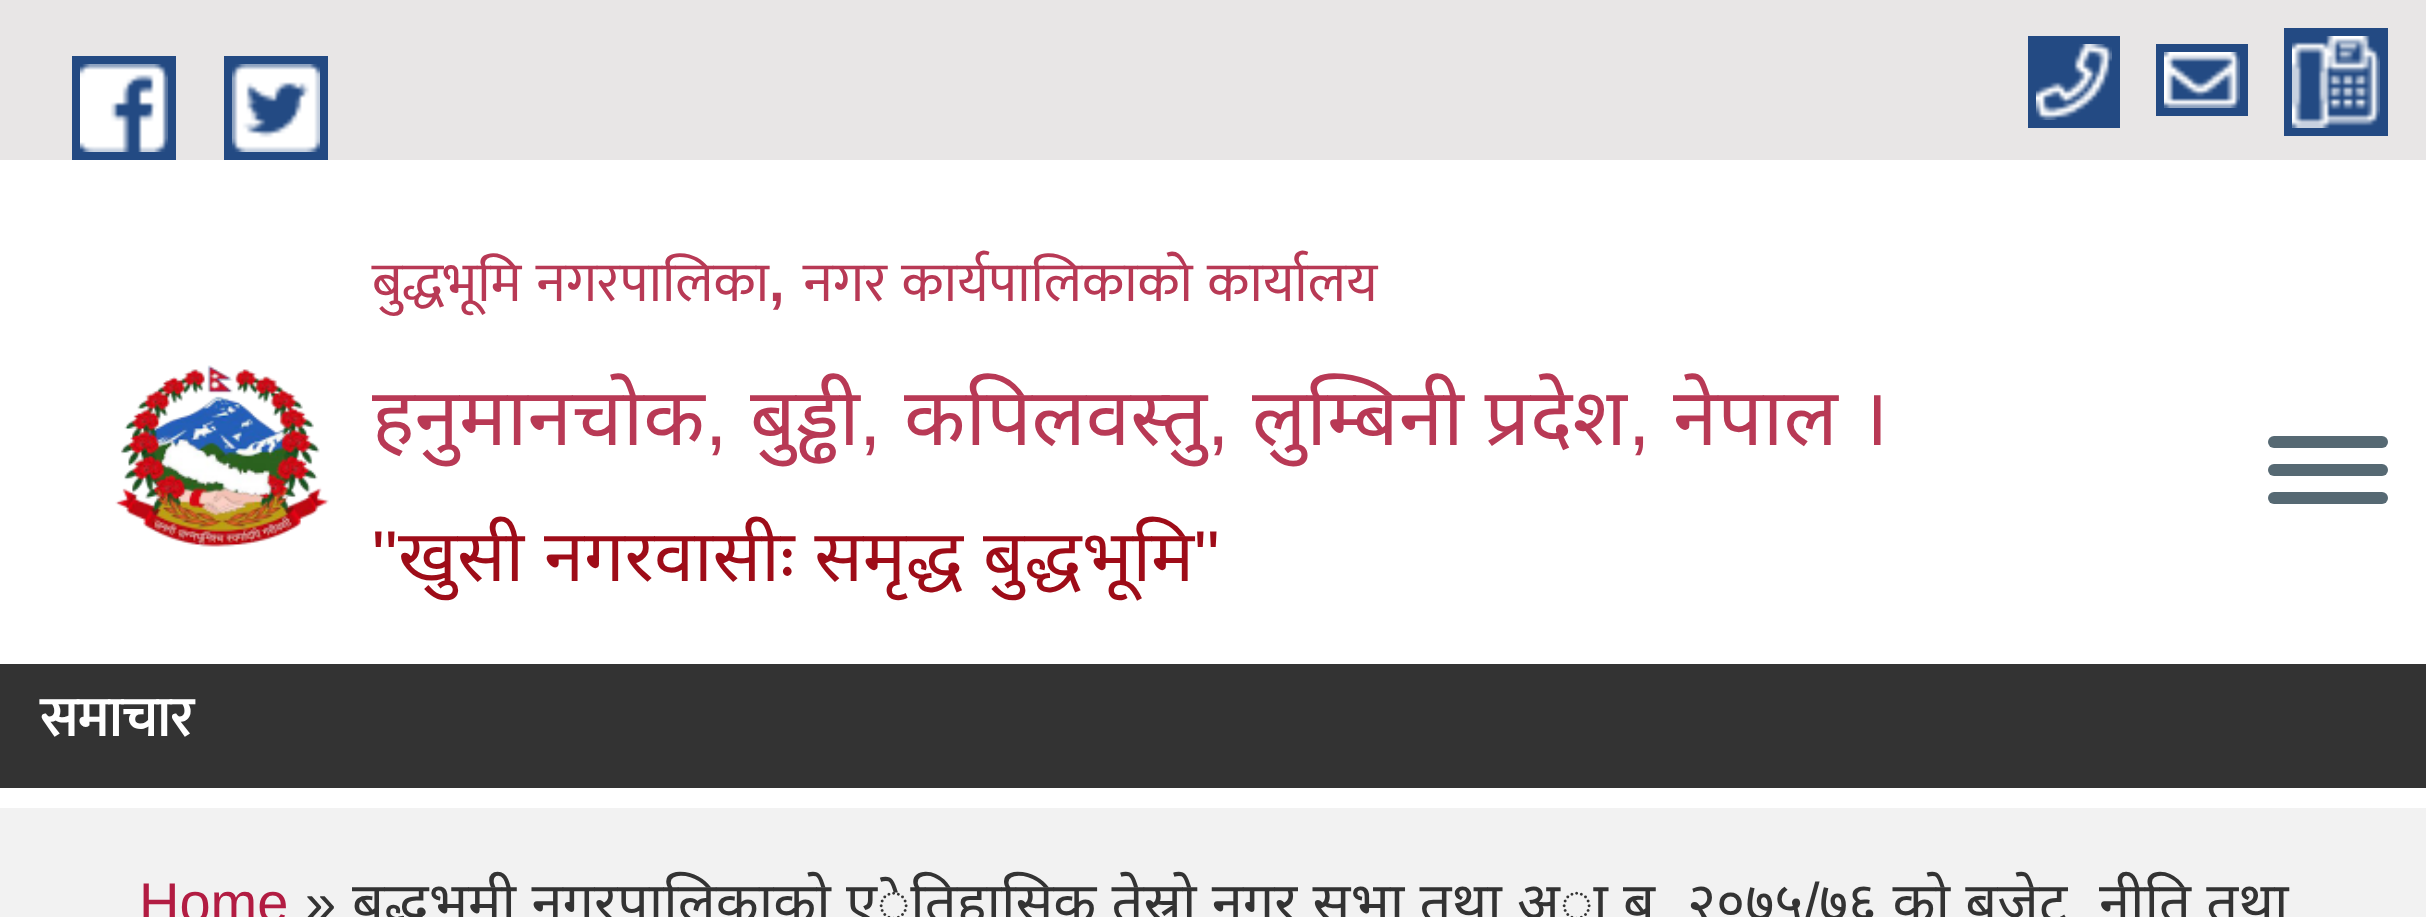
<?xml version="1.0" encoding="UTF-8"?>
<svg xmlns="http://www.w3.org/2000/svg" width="2426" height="917">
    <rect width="100%" height="100%" fill="#FFFFFF"/>
    <rect x="0" y="0" width="2426" height="160" fill="#E8E6E6"/>
    <rect x="72" y="56" width="104" height="104" fill="#234A83"/>
    <rect x="224" y="56" width="104" height="104" fill="#234A83"/>
    <image x="80" y="64" width="88" height="88" href="img_01.png"/>
    <image x="232" y="64" width="88" height="88" href="img_02.png"/>
    <rect x="2028" y="36" width="92" height="92" fill="#234A83"/>
    <rect x="2284" y="28" width="104" height="108" fill="#234A83"/>
    <image x="2036" y="44" width="76" height="76" href="img_03.png"/>
    <rect x="2156" y="44" width="92" height="72" fill="#234A83"/>
    <image x="2292" y="36" width="88" height="92" href="img_04.png"/>
    <image x="2164" y="52" width="76" height="56" href="img_05.png"/>
    <image x="115" y="365" width="214" height="182" href="img_06.png"/>
    <text x="372" y="301" word-spacing="2" font-family="Mukta" font-size="56" fill="#B83955">बुद्धभूमि नगरपालिका</text>
    <text x="769" y="301" font-family="Liberation Sans" font-size="56" font-weight="700" fill="#B83955">,</text>
    <text x="803" y="301" word-spacing="2" font-family="Mukta" font-size="56" fill="#B83955">नगर कार्यपालिकाको कार्यालय</text>
    <text x="372" y="445" font-family="Noto Sans" font-size="80" fill="#B83955">हनुमानचोक</text>
    <text x="705" y="445" font-family="Liberation Sans" font-size="80" fill="#B83955">,</text>
    <text x="750" y="445" font-family="Noto Sans" font-size="80" fill="#B83955">बुड्ढी</text>
    <text x="904" y="445" font-family="Noto Sans" font-size="80" fill="#B83955">कपिलवस्तु</text>
    <text x="1207" y="445" font-family="Liberation Sans" font-size="80" fill="#B83955">,</text>
    <text x="1252" y="445" font-family="Noto Sans" font-size="80" fill="#B83955">लुम्बिनी प्रदेश</text>
    <text x="1628" y="445" font-family="Liberation Sans" font-size="80" fill="#B83955">,</text>
    <text x="1673" y="445" font-family="Noto Sans" font-size="80" fill="#B83955">नेपाल ।</text>
    <text x="859" y="445" font-family="Liberation Sans" font-size="80" fill="#B83955">,</text>
    <text x="372" y="581" font-family="Liberation Sans" font-size="72" fill="#9E0C18">"</text>
    <text x="398" y="581" word-spacing="1" font-family="Noto Sans" font-size="72" fill="#9E0C18">खुसी नगरवासीः समृद्ध बुद्धभूमि</text>
    <text x="1194" y="581" font-family="Liberation Sans" font-size="72" fill="#9E0C18">"</text>
    <rect x="2268" y="436" width="120" height="12" rx="6" fill="#566973"/>
    <rect x="2268" y="464" width="120" height="12" rx="6" fill="#566973"/>
    <rect x="2268" y="492" width="120" height="12" rx="6" fill="#566973"/>
    <rect x="0" y="664" width="2426" height="124" fill="#333333"/>
    <text x="40" y="736" font-family="Mukta" font-size="56" font-weight="700" fill="#FFFFFF">समाचार</text>
    <rect x="0" y="808" width="2426" height="109" fill="#F2F2F2"/>
    <text x="139" y="922" font-family="Liberation Sans" font-size="56" fill="#B21C42">Home</text>
    <text x="305" y="922" font-family="Liberation Sans" font-size="56" fill="#333333">»</text>
    <text x="352" y="922" word-spacing="0.75" font-family="Noto Sans" font-size="56" fill="#333333">बुद्धभूमी नगरपालिकाकाे एेतिहासिक तेस्राे नगर सभा तथा अा</text>
    <text x="1623" y="922" font-family="Noto Sans" font-size="56" fill="#333333">ब</text>
    <text x="1687" y="922" font-family="Noto Sans" font-size="56" fill="#333333">२०७५</text>
    <text x="1804" y="922" font-family="Liberation Sans" font-size="56" fill="#333333">/</text>
    <text x="1819" y="922" word-spacing="0.75" font-family="Noto Sans" font-size="56" fill="#333333">७६ काे बजेट</text>
    <text x="2099" y="922" word-spacing="0.75" font-family="Noto Sans" font-size="56" fill="#333333">नीति तथा</text>
</svg>
